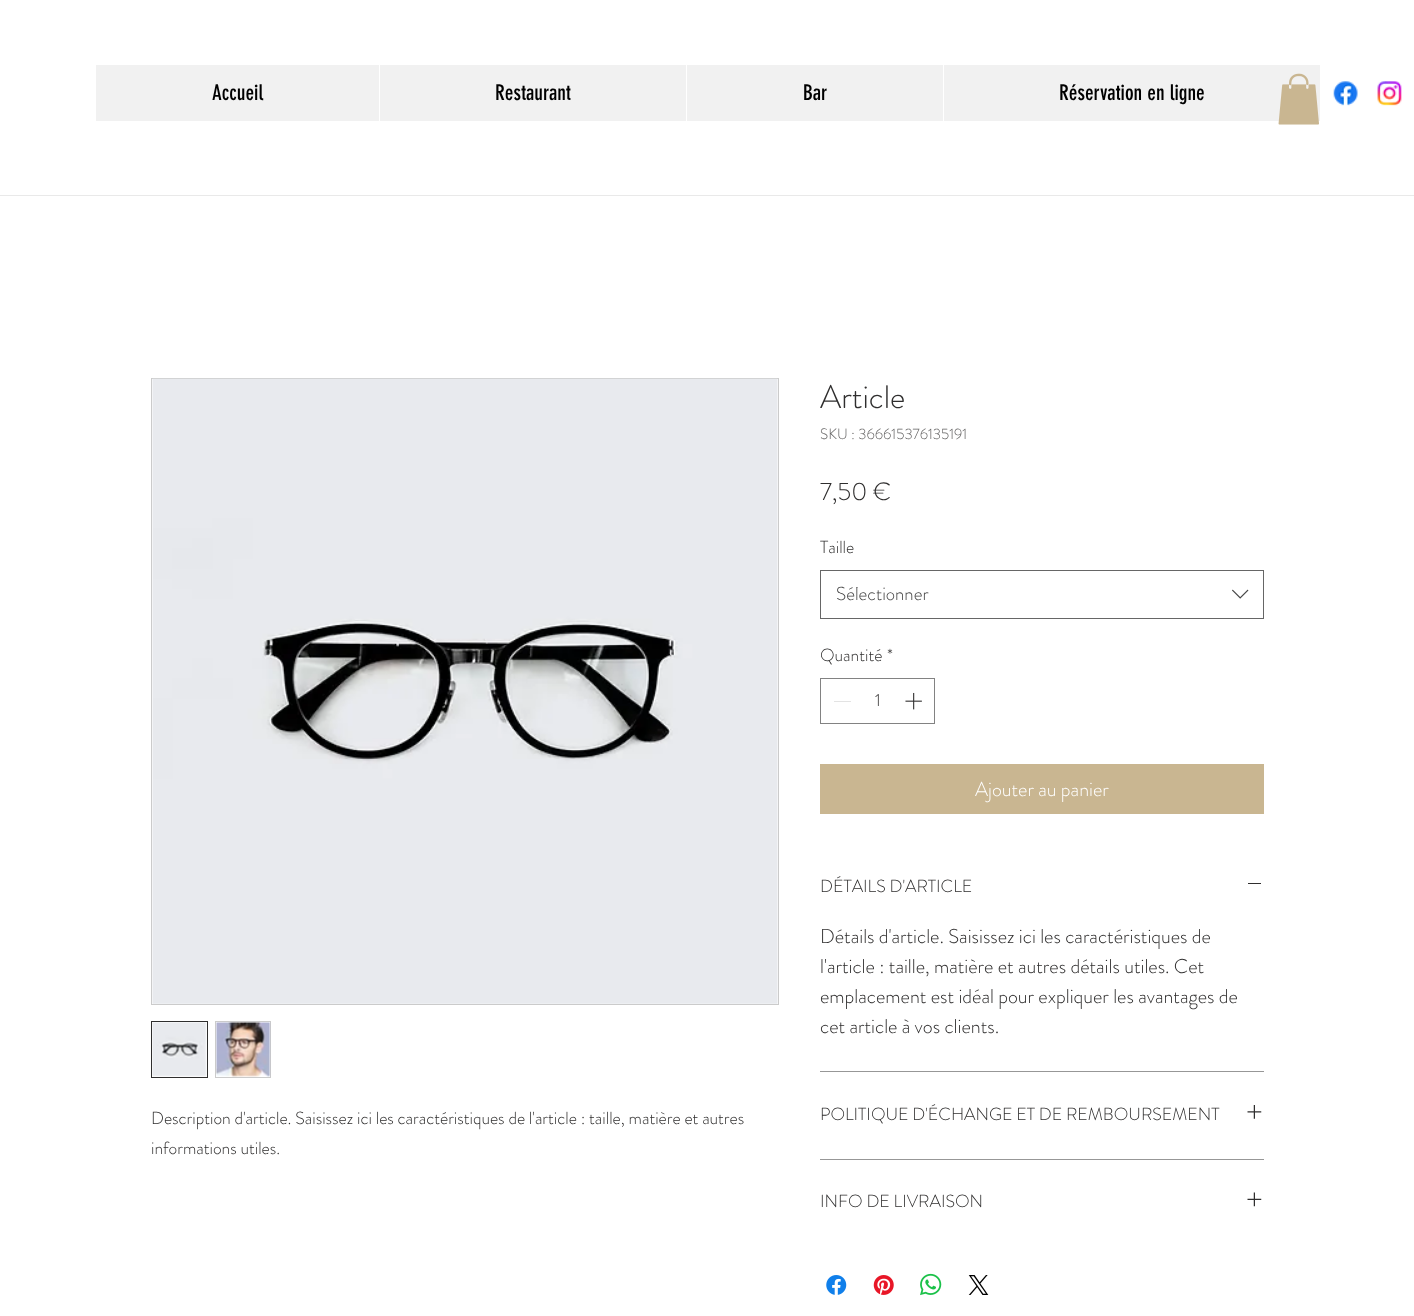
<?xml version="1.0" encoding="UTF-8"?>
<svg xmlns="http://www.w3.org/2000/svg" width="1414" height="1316">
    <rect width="100%" height="100%" fill="#FFFFFF"/>
    <rect x="96" y="65" width="1224" height="56" fill="#F1F1F1"/>
    <text x="212" y="100" font-family="'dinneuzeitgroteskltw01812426'" font-size="21.25" fill="#000000">Accueil</text>
    <rect x="379" y="65" width="1" height="56" fill="#FFFFFF"/>
    <text x="495" y="100" font-family="'dinneuzeitgroteskltw01812426'" font-size="21.25" fill="#000000">Restaurant</text>
    <rect x="686" y="65" width="1" height="56" fill="#FFFFFF"/>
    <text x="803" y="100" font-family="'dinneuzeitgroteskltw01812426'" font-size="21.25" fill="#000000">Bar</text>
    <rect x="943" y="65" width="1" height="56" fill="#FFFFFF"/>
    <text x="1059" y="100" font-family="'dinneuzeitgroteskltw01812426'" font-size="21.25" fill="#000000">Réservation en ligne</text>
    <image x="1278" y="73" width="41" height="52" href="img_01.png"/>
    <image x="1333" y="81" width="25" height="25" href="img_02.png"/>
    <image x="1377" y="81" width="25" height="25" href="img_03.png"/>
    <rect x="0" y="195" width="1414" height="1" fill="#E9E9E9"/>
    <rect x="151.5" y="378.5" width="627" height="626" fill="none" stroke="#CBCBCB"/>
    <image x="152" y="378" width="626" height="626" href="img_04.png"/>
    <rect x="151.5" y="1021.5" width="56" height="56" fill="none" stroke="#2F2E2E"/>
    <image x="152" y="1022" width="55" height="55" href="img_05.png"/>
    <rect x="215.5" y="1021.5" width="55" height="56" fill="none" stroke="#CBCBCB"/>
    <image x="216" y="1022" width="55" height="55" href="img_06.png"/>
    <text font-family="'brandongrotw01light'" font-size="17.5" font-weight="300" fill="#2F2E2E">
        <tspan x="151" y="1124">Description d'article. Saisissez ici les caractéristiques de l'article : taille, matière et autres</tspan>
        <tspan x="151" y="1154">informations utiles.</tspan>
    </text>
    <text x="820" y="408" font-family="'brandongrotw01light'" font-size="32.5" font-weight="300" fill="#2F2E2E">Article</text>
    <text x="820" y="439" font-family="'brandongrotw01light'" font-size="15" font-weight="300" fill="#636262">SKU : 366615376135191</text>
    <text x="820" y="500" font-family="'brandongrotw01light'" font-size="25" font-weight="300" fill="#2F2E2E">7,50 €</text>
    <text x="820" y="553" font-family="'brandongrotw01light'" font-size="17.5" font-weight="300" fill="#2F2E2E">Taille</text>
    <rect x="820.5" y="570.5" width="443" height="48" fill="none" stroke="#666666"/>
    <text x="836" y="600" font-family="'brandongrotw01light'" font-size="18.75" font-weight="300" fill="#444444">Sélectionner</text>
    <image x="1232" y="589" width="17" height="10" href="img_07.png"/>
    <text x="820" y="661" font-family="'brandongrotw01light'" font-size="17.5" font-weight="300" fill="#2F2E2E">Quantité</text>
    <text x="887" y="661" font-family="'brandongrotw01light'" font-size="17.5" font-weight="300" fill="#2F2E2E">*</text>
    <rect x="820.5" y="678.5" width="114" height="45" fill="none" stroke="#828282"/>
    <rect x="834" y="701" width="17" height="1" fill="#E3E3E3"/>
    <text x="875" y="706" font-family="'brandongrotw01light'" font-size="17.5" font-weight="300" fill="#2F2E2E">1</text>
    <image x="905" y="692" width="17" height="18" href="img_08.png"/>
    <rect x="820" y="764" width="444" height="50" fill="#C9B691"/>
    <text x="975" y="796" font-family="'brandongrotw01light'" font-size="20" font-weight="300" fill="#FFFFFF">Ajouter au panier</text>
    <rect x="820" y="1071" width="444" height="1" fill="#979797"/>
    <text x="820" y="892" font-family="'brandongrotw01light'" font-size="17.5" font-weight="300" fill="#2F2E2E">DÉTAILS D'ARTICLE</text>
    <rect x="1248" y="883" width="13" height="1" fill="#2F2E2E"/>
    <text font-family="'brandongrotw01light'" font-size="20" font-weight="300" fill="#2F2E2E">
        <tspan x="820" y="943">Détails d'article. Saisissez ici les caractéristiques de</tspan>
        <tspan x="820" y="973">l'article : taille, matière et autres détails utiles. Cet</tspan>
        <tspan x="820" y="1003">emplacement est idéal pour expliquer les avantages de</tspan>
        <tspan x="820" y="1033">cet article à vos clients.</tspan>
    </text>
    <rect x="820" y="1159" width="444" height="1" fill="#979797"/>
    <text x="820" y="1120" font-family="'brandongrotw01light'" font-size="17.5" font-weight="300" fill="#2F2E2E">POLITIQUE D'ÉCHANGE ET DE REMBOURSEMENT</text>
    <image x="1247" y="1105" width="15" height="14" href="img_09.png"/>
    <text x="820" y="1207" font-family="'brandongrotw01light'" font-size="17.5" font-weight="300" fill="#2F2E2E">INFO DE LIVRAISON</text>
    <image x="1247" y="1192" width="15" height="15" href="img_10.png"/>
    <image x="826" y="1275" width="21" height="20" href="img_11.png"/>
    <image x="873" y="1275" width="21" height="20" href="img_12.png"/>
    <image x="920" y="1273" width="22" height="23" href="img_13.png"/>
    <image x="968" y="1275" width="21" height="20" href="img_14.png"/>
</svg>
